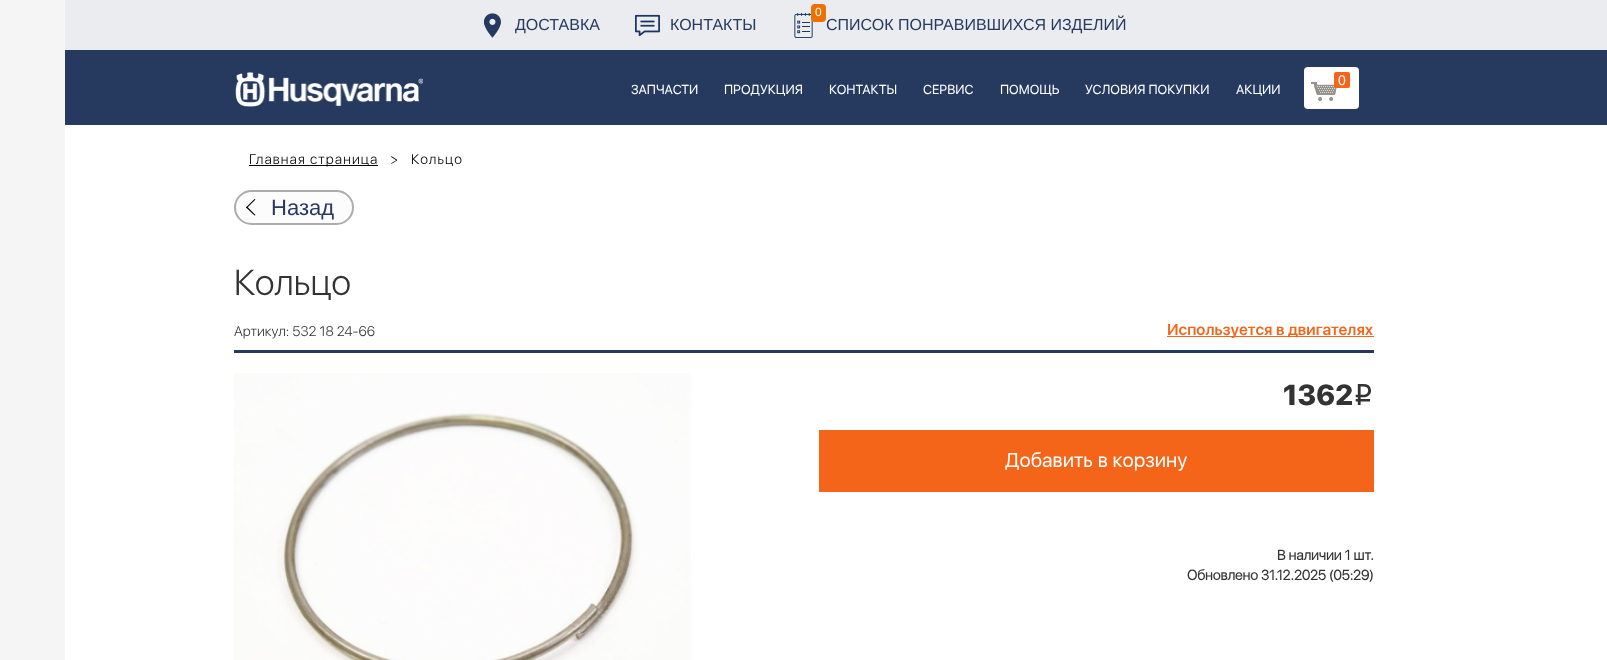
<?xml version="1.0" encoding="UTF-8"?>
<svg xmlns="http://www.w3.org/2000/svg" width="1607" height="660">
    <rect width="100%" height="100%" fill="#FFFFFF"/>
    <rect x="0" y="0" width="65" height="660" fill="#F5F5F5"/>
    <rect x="65" y="0" width="1542" height="50" fill="#EAECF0"/>
    <image x="483" y="13" width="18" height="25" href="img_01.png"/>
    <text x="515" y="30" font-family="Liberation Sans" font-size="16" fill="#263A5F">ДОСТАВКА</text>
    <image x="635" y="14" width="25" height="23" href="img_02.png"/>
    <text x="670" y="30" font-family="Liberation Sans" font-size="16" fill="#263A5F">КОНТАКТЫ</text>
    <image x="794" y="13" width="19" height="25" href="img_03.png"/>
    <rect x="811" y="4" width="15" height="18" rx="4" fill="#ED7102"/>
    <text x="815" y="16" font-family="Liberation Sans" font-size="12" fill="#FFFFFF">0</text>
    <text x="826" y="30" font-family="Liberation Sans" font-size="16" fill="#263A5F">СПИСОК ПОНРАВИВШИХСЯ ИЗДЕЛИЙ</text>
    <rect x="65" y="50" width="1542" height="75" fill="#263A5F"/>
    <image x="235" y="72" width="188" height="35" href="img_04.png"/>
    <rect x="1304" y="67" width="55" height="42" rx="4" fill="#FFFFFF"/>
    <image x="1311" y="82" width="26" height="19" href="img_05.png"/>
    <rect x="1334" y="72" width="16" height="16" rx="2" fill="#F4651A"/>
    <text x="1338" y="85" font-family="Liberation Sans" font-size="14" fill="#FFFFFF">0</text>
    <text x="631" y="94" font-family="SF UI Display" font-size="13" fill="#FFFFFF">ЗАПЧАСТИ</text>
    <text x="724" y="94" font-family="SF UI Display" font-size="13" fill="#FFFFFF">ПРОДУКЦИЯ</text>
    <text x="829" y="94" font-family="SF UI Display" font-size="13" fill="#FFFFFF">КОНТАКТЫ</text>
    <text x="923" y="94" font-family="SF UI Display" font-size="13" fill="#FFFFFF">СЕРВИС</text>
    <text x="1000" y="94" font-family="SF UI Display" font-size="13" fill="#FFFFFF">ПОМОЩЬ</text>
    <text x="1085" y="94" font-family="SF UI Display" font-size="13" fill="#FFFFFF">УСЛОВИЯ ПОКУПКИ</text>
    <text x="1236" y="94" font-family="SF UI Display" font-size="13" fill="#FFFFFF">АКЦИИ</text>
    <rect x="249" y="165" width="129" height="1" fill="#000000"/>
    <text x="249" y="164" font-family="SF UI Display" font-size="14" font-weight="300" letter-spacing="1.1" fill="#000000">Главная страница</text>
    <text x="390" y="164" font-family="SF UI Display" font-size="14" font-weight="300" letter-spacing="1.1" fill="#000000">&gt;</text>
    <text x="411" y="164" font-family="SF UI Display" font-size="14" font-weight="300" letter-spacing="1.1" fill="#000000">Кольцо</text>
    <rect x="235" y="191" width="118" height="33" rx="16.5" fill="#FCFCFC" stroke="#ACACAC" stroke-width="2"/>
    <path d="M 246 207.5 L 254.5 199 L 255.5 199.5 L 247 208 Z" fill="#000000"/>
    <path d="M 246 207.5 L 247 206.5 L 255.5 215 L 254.5 215.5 Z" fill="#000000"/>
    <text x="271" y="215" font-family="Liberation Sans" font-size="22" fill="#263A5F">Назад</text>
    <text x="234" y="295" font-family="SF UI Display" font-size="36" font-weight="300" fill="#333333">Кольцо</text>
    <text x="234" y="336" font-family="SF UI Display" font-size="14" font-weight="300" fill="#333333">Артикул: 532 18 24-66</text>
    <rect x="1167" y="336" width="207" height="1" fill="#F4651A"/>
    <text x="1167" y="335" font-family="SF UI Display" font-size="16" font-weight="600" fill="#F4651A">Используется в двигателях</text>
    <rect x="234" y="350" width="1140" height="3" fill="#263A5F"/>
    <image x="234" y="373" width="457" height="287" href="img_06.png"/>
    <text x="1283" y="405" font-family="SF UI Display" font-size="30" font-weight="900" fill="#333333">1362</text>
    <text x="1353" y="405" font-family="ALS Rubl" font-size="30" fill="#333333">i</text>
    <rect x="819" y="430" width="555" height="62" fill="#F4651A"/>
    <text x="1005" y="467" font-family="SF UI Display" font-size="20" fill="#FFFFFF">Добавить в корзину</text>
    <text x="1277" y="560" font-family="SF UI Display" font-size="14" font-weight="700" fill="#333333">В наличии 1 шт.</text>
    <text x="1187" y="580" font-family="SF UI Display" font-size="14" font-weight="700" fill="#333333">Обновлено 31.12.2025 (05:29)</text>
</svg>
